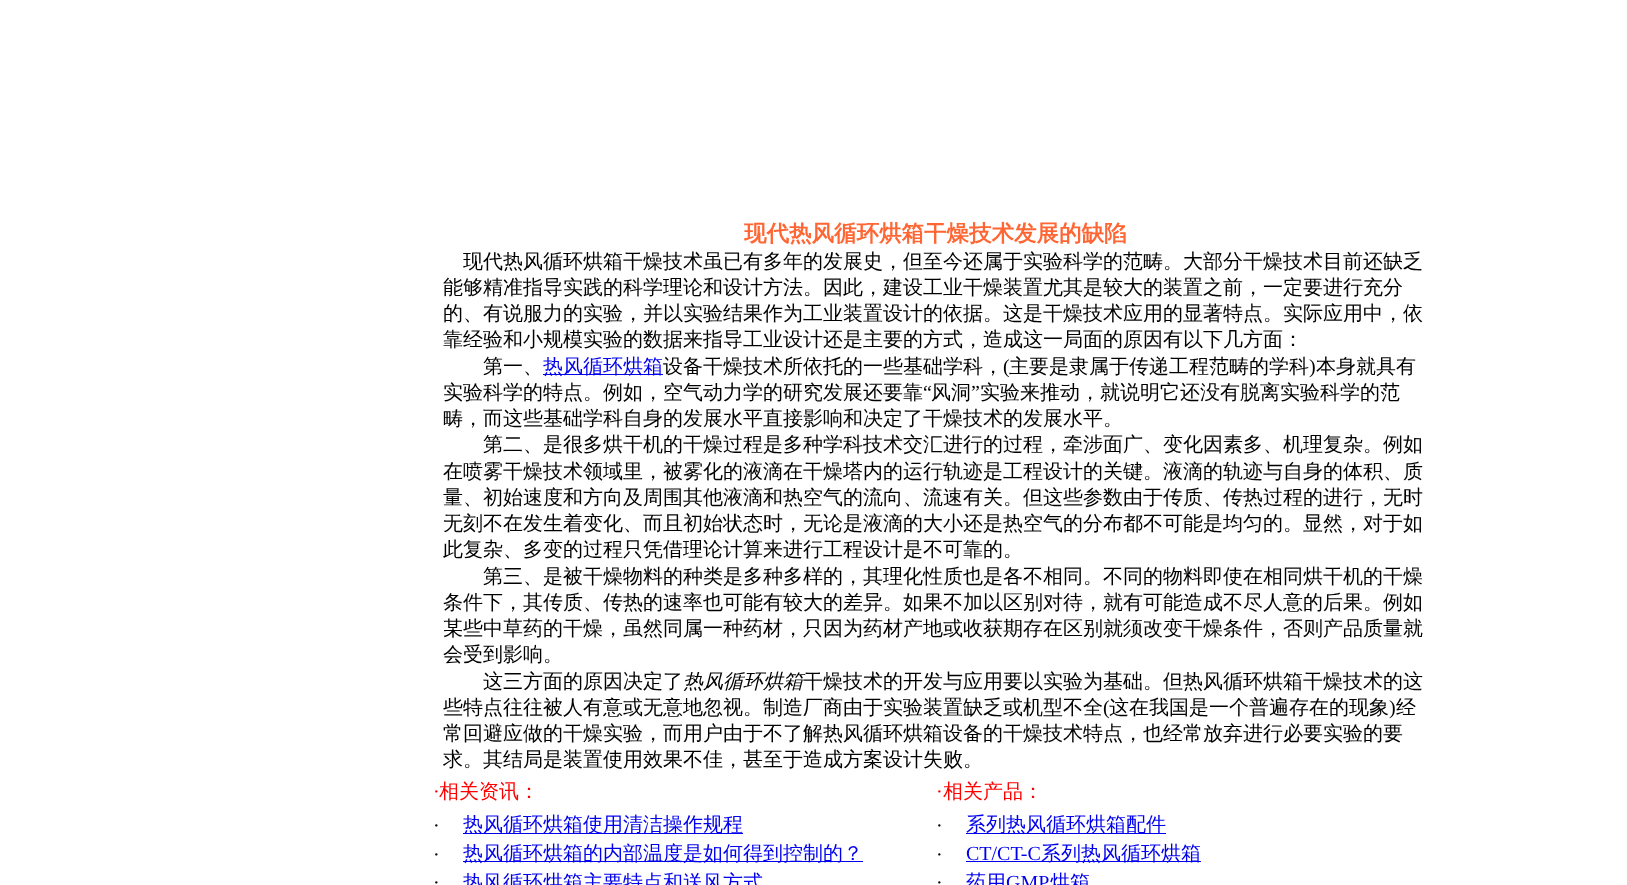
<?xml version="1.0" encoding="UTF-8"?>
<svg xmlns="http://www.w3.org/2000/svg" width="1627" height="885">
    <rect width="100%" height="100%" fill="#FFFFFF"/>
    <text x="744" y="241" font-family="WenQuanYi Zen Hei" font-size="22.5" font-weight="700" fill="#FF6633">现代热风循环烘箱干燥技术发展的缺陷</text>
    <text x="463" y="268" font-family="WenQuanYi Zen Hei" font-size="20" font-weight="500" fill="#000000">现代热风循环烘箱干燥技术虽已有多年的发展史，但至今还属于实验科学的范畴。大部分干燥技术目前还缺乏</text>
    <text font-family="WenQuanYi Zen Hei" font-size="20" font-weight="500" fill="#000000">
        <tspan x="443" y="294">能够精准指导实践的科学理论和设计方法。因此，建设工业干燥装置尤其是较大的装置之前，一定要进行充分</tspan>
        <tspan x="443" y="320">的、有说服力的实验，并以实验结果作为工业装置设计的依据。这是干燥技术应用的显著特点。实际应用中，依</tspan>
        <tspan x="443" y="346">靠经验和小规模实验的数据来指导工业设计还是主要的方式，造成这一局面的原因有以下几方面：</tspan>
    </text>
    <text x="483" y="373" font-family="WenQuanYi Zen Hei" font-size="20" font-weight="500" fill="#000000">第一、</text>
    <rect x="543" y="374" width="120" height="1" fill="#0000EE"/>
    <text x="543" y="373" font-family="WenQuanYi Zen Hei" font-size="20" font-weight="500" fill="#0000EE">热风循环烘箱</text>
    <text x="663" y="373" font-family="WenQuanYi Zen Hei" font-size="20" font-weight="500" fill="#000000">设备干燥技术所依托的一些基础学科，</text>
    <text x="1003" y="373" font-family="Liberation Serif" font-size="20" fill="#000000">(</text>
    <text x="1009" y="373" font-family="WenQuanYi Zen Hei" font-size="20" font-weight="500" fill="#000000">主要是隶属于传递工程范畴的学科</text>
    <text x="1309" y="373" font-family="Liberation Serif" font-size="20" fill="#000000">)</text>
    <text x="1316" y="373" font-family="WenQuanYi Zen Hei" font-size="20" font-weight="500" fill="#000000">本身就具有</text>
    <text x="443" y="399" font-family="WenQuanYi Zen Hei" font-size="20" font-weight="500" fill="#000000">实验科学的特点。例如，空气动力学的研究发展还要靠</text>
    <text x="923" y="399" font-family="Liberation Serif" font-size="20" fill="#000000">“</text>
    <text x="931" y="399" font-family="WenQuanYi Zen Hei" font-size="20" font-weight="500" fill="#000000">风洞</text>
    <text x="971" y="399" font-family="Liberation Serif" font-size="20" fill="#000000">”</text>
    <text x="980" y="399" font-family="WenQuanYi Zen Hei" font-size="20" font-weight="500" fill="#000000">实验来推动，就说明它还没有脱离实验科学的范</text>
    <text x="443" y="425" font-family="WenQuanYi Zen Hei" font-size="20" font-weight="500" fill="#000000">畴，而这些基础学科自身的发展水平直接影响和决定了干燥技术的发展水平。</text>
    <text x="483" y="451" font-family="WenQuanYi Zen Hei" font-size="20" font-weight="500" fill="#000000">第二、是很多烘干机的干燥过程是多种学科技术交汇进行的过程，牵涉面广、变化因素多、机理复杂。例如</text>
    <text font-family="WenQuanYi Zen Hei" font-size="20" font-weight="500" fill="#000000">
        <tspan x="443" y="478">在喷雾干燥技术领域里，被雾化的液滴在干燥塔内的运行轨迹是工程设计的关键。液滴的轨迹与自身的体积、质</tspan>
        <tspan x="443" y="504">量、初始速度和方向及周围其他液滴和热空气的流向、流速有关。但这些参数由于传质、传热过程的进行，无时</tspan>
        <tspan x="443" y="530">无刻不在发生着变化、而且初始状态时，无论是液滴的大小还是热空气的分布都不可能是均匀的。显然，对于如</tspan>
        <tspan x="443" y="556">此复杂、多变的过程只凭借理论计算来进行工程设计是不可靠的。</tspan>
    </text>
    <text x="483" y="583" font-family="WenQuanYi Zen Hei" font-size="20" font-weight="500" fill="#000000">第三、是被干燥物料的种类是多种多样的，其理化性质也是各不相同。不同的物料即使在相同烘干机的干燥</text>
    <text font-family="WenQuanYi Zen Hei" font-size="20" font-weight="500" fill="#000000">
        <tspan x="443" y="609">条件下，其传质、传热的速率也可能有较大的差异。如果不加以区别对待，就有可能造成不尽人意的后果。例如</tspan>
        <tspan x="443" y="635">某些中草药的干燥，虽然同属一种药材，只因为药材产地或收获期存在区别就须改变干燥条件，否则产品质量就</tspan>
        <tspan x="443" y="661">会受到影响。</tspan>
    </text>
    <text x="483" y="688" font-family="WenQuanYi Zen Hei" font-size="20" font-weight="500" fill="#000000">这三方面的原因决定了</text>
    <text x="683" y="688" font-family="WenQuanYi Zen Hei" font-size="20" font-weight="500" font-style="italic" fill="#000000">热风循环烘箱</text>
    <text x="803" y="688" font-family="WenQuanYi Zen Hei" font-size="20" font-weight="500" fill="#000000">干燥技术的开发与应用要以实验为基础。但热风循环烘箱干燥技术的这</text>
    <text x="443" y="714" font-family="WenQuanYi Zen Hei" font-size="20" font-weight="500" fill="#000000">些特点往往被人有意或无意地忽视。制造厂商由于实验装置缺乏或机型不全</text>
    <text x="1103" y="714" font-family="Liberation Serif" font-size="20" fill="#000000">(</text>
    <text x="1109" y="714" font-family="WenQuanYi Zen Hei" font-size="20" font-weight="500" fill="#000000">这在我国是一个普遍存在的现象</text>
    <text x="1389" y="714" font-family="Liberation Serif" font-size="20" fill="#000000">)</text>
    <text x="1396" y="714" font-family="WenQuanYi Zen Hei" font-size="20" font-weight="500" fill="#000000">经</text>
    <text font-family="WenQuanYi Zen Hei" font-size="20" font-weight="500" fill="#000000">
        <tspan x="443" y="740">常回避应做的干燥实验，而用户由于不了解热风循环烘箱设备的干燥技术特点，也经常放弃进行必要实验的要</tspan>
        <tspan x="443" y="766">求。其结局是装置使用效果不佳，甚至于造成方案设计失败。</tspan>
    </text>
    <text x="433" y="798" font-family="Liberation Serif" font-size="20" fill="#FF0000">·</text>
    <text x="439" y="798" font-family="WenQuanYi Zen Hei" font-size="20" font-weight="500" fill="#FF0000">相关资讯：</text>
    <text x="936" y="798" font-family="Liberation Serif" font-size="20" fill="#FF0000">·</text>
    <text x="943" y="798" font-family="WenQuanYi Zen Hei" font-size="20" font-weight="500" fill="#FF0000">相关产品：</text>
    <text x="433" y="832" font-family="Liberation Serif" font-size="20" fill="#000000">·</text>
    <rect x="463" y="833" width="280" height="1" fill="#0000EE"/>
    <text x="463" y="831" font-family="WenQuanYi Zen Hei" font-size="20" font-weight="500" fill="#0000EE">热风循环烘箱使用清洁操作规程</text>
    <text x="433" y="861" font-family="Liberation Serif" font-size="20" fill="#000000">·</text>
    <rect x="463" y="861" width="400" height="1" fill="#0000EE"/>
    <text x="463" y="860" font-family="WenQuanYi Zen Hei" font-size="20" font-weight="500" fill="#0000EE">热风循环烘箱的内部温度是如何得到控制的？</text>
    <text x="433" y="889" font-family="Liberation Serif" font-size="20" fill="#000000">·</text>
    <text x="463" y="889" font-family="WenQuanYi Zen Hei" font-size="20" font-weight="500" fill="#0000EE">热风循环烘箱主要特点和送风方式</text>
    <text x="936" y="832" font-family="Liberation Serif" font-size="20" fill="#000000">·</text>
    <rect x="966" y="833" width="200" height="1" fill="#0000EE"/>
    <text x="966" y="831" font-family="WenQuanYi Zen Hei" font-size="20" font-weight="500" fill="#0000EE">系列热风循环烘箱配件</text>
    <text x="936" y="861" font-family="Liberation Serif" font-size="20" fill="#000000">·</text>
    <text x="966" y="860" font-family="Liberation Serif" font-size="20" fill="#0000EE">CT/CT-C</text>
    <rect x="966" y="861" width="235" height="1" fill="#0000EE"/>
    <text x="1041" y="860" font-family="WenQuanYi Zen Hei" font-size="20" font-weight="500" fill="#0000EE">系列热风循环烘箱</text>
    <text x="936" y="889" font-family="Liberation Serif" font-size="20" fill="#000000">·</text>
    <text x="966" y="889" font-family="WenQuanYi Zen Hei" font-size="20" font-weight="500" fill="#0000EE">药用</text>
    <text x="1006" y="889" font-family="Liberation Serif" font-size="20" fill="#0000EE">GMP</text>
    <text x="1050" y="889" font-family="WenQuanYi Zen Hei" font-size="20" font-weight="500" fill="#0000EE">烘箱</text>
</svg>
